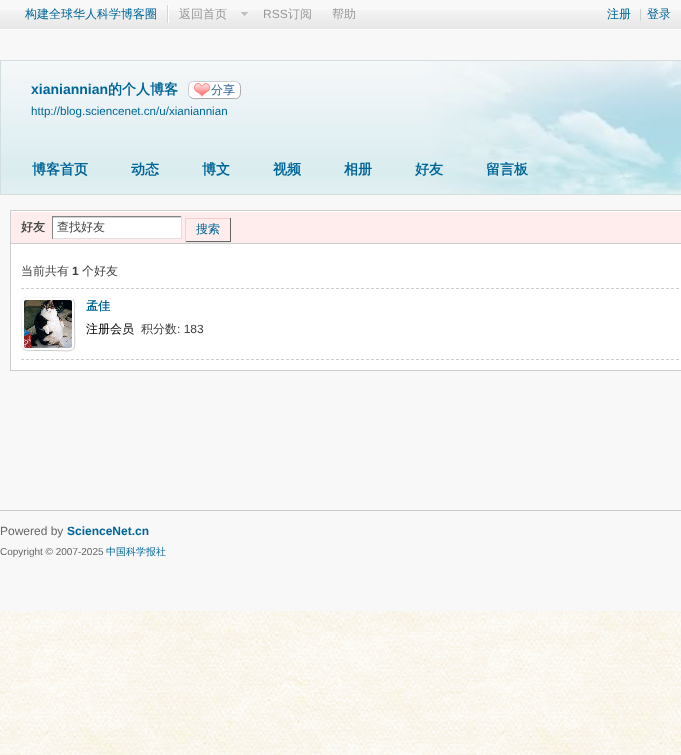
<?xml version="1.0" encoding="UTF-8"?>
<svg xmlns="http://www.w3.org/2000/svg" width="681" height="755">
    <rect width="100%" height="100%" fill="#FFFFFF"/>
    <image x="0" y="611" width="681" height="144" href="img_01.png"/>
    <rect x="0" y="0" width="681" height="611" fill="#F8F8F8"/>
    <image x="0" y="10" width="681" height="20" href="img_02.png"/>
    <rect x="168" y="5" width="1" height="18" fill="#FFFFFF"/>
    <rect x="167" y="5" width="1" height="18" fill="#D5D5D5"/>
    <text x="25" y="18" font-family="WenQuanYi Zen Hei" font-size="12" font-weight="500" fill="#006699">构建全球华人科学博客圈</text>
    <text x="179" y="18" font-family="WenQuanYi Zen Hei" font-size="12" font-weight="500" fill="#999999">返回首页</text>
    <image x="241" y="12" width="7" height="4" href="img_03.png"/>
    <text x="263" y="18" font-family="Liberation Sans" font-size="12" fill="#999999">RSS</text>
    <text x="288" y="18" font-family="WenQuanYi Zen Hei" font-size="12" font-weight="500" fill="#999999">订阅</text>
    <text x="332" y="18" font-family="WenQuanYi Zen Hei" font-size="12" font-weight="500" fill="#999999">帮助</text>
    <text x="607" y="18" font-family="WenQuanYi Zen Hei" font-size="12" font-weight="500" fill="#006699">注册</text>
    <text x="639" y="18" font-family="Liberation Sans" font-size="12" fill="#CCCCCC">|</text>
    <text x="647" y="18" font-family="WenQuanYi Zen Hei" font-size="12" font-weight="500" fill="#006699">登录</text>
    <image x="1" y="61" width="680" height="133" href="img_04.png"/>
    <rect x="0.5" y="60.5" width="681" height="134" fill="none" stroke="#D3DFDF"/>
    <text x="31" y="94" font-family="Liberation Sans" font-size="14" font-weight="700" fill="#006699">xianiannian</text>
    <text x="108" y="94" font-family="WenQuanYi Zen Hei" font-size="14" font-weight="700" fill="#006699">的个人博客</text>
    <rect x="188" y="81" width="53" height="18" rx="5" fill="#FFFFFF"/>
    <image x="194" y="83" width="16" height="14" href="img_05.png"/>
    <path d="M 239 83 C 241 85 240.5 88 240.5 91 C 240.5 100 237.5 98.5 229 98.5 H 200 C 198 98.5 192.5 99.5 190 97" fill="none" stroke="#A9A9A9"/>
    <path d="M 190 97 C 188 95 188.5 92 188.5 89 C 188.5 80 191.5 81.5 200 81.5 H 229 C 231 81.5 236.5 80.5 239 83" fill="none" stroke="#CCCCCC"/>
    <text x="211" y="94" font-family="WenQuanYi Zen Hei" font-size="12" font-weight="500" fill="#336699">分享</text>
    <text x="31" y="115" font-family="Liberation Sans" font-size="11.6" fill="#006699">http://blog.sciencenet.cn/u/xianiannian</text>
    <text x="32" y="174" font-family="WenQuanYi Zen Hei" font-size="14" font-weight="700" fill="#006699">博客首页</text>
    <text x="131" y="174" font-family="WenQuanYi Zen Hei" font-size="14" font-weight="700" fill="#006699">动态</text>
    <text x="202" y="174" font-family="WenQuanYi Zen Hei" font-size="14" font-weight="700" fill="#006699">博文</text>
    <text x="273" y="174" font-family="WenQuanYi Zen Hei" font-size="14" font-weight="700" fill="#006699">视频</text>
    <text x="344" y="174" font-family="WenQuanYi Zen Hei" font-size="14" font-weight="700" fill="#006699">相册</text>
    <text x="415" y="174" font-family="WenQuanYi Zen Hei" font-size="14" font-weight="700" fill="#006699">好友</text>
    <text x="486" y="174" font-family="WenQuanYi Zen Hei" font-size="14" font-weight="700" fill="#006699">留言板</text>
    <rect x="11" y="244" width="670" height="126" fill="#FFFFFF"/>
    <rect x="10.5" y="210.5" width="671" height="160" fill="none" stroke="#CDCDCD"/>
    <rect x="11" y="212" width="670" height="31" fill="#FFECEC"/>
    <rect x="11" y="211" width="670" height="1" fill="#FFFFFF"/>
    <rect x="11" y="243" width="670" height="1" fill="#CDCDCD"/>
    <text x="21" y="231" font-family="WenQuanYi Zen Hei" font-size="12" font-weight="700" fill="#444444">好友</text>
    <rect x="53" y="218" width="128" height="20" fill="#FFFFFF"/>
    <rect x="52" y="217" width="130" height="1" fill="#D4D4D4"/>
    <rect x="52" y="216" width="130" height="1" fill="#848484"/>
    <rect x="181" y="216" width="1" height="23" fill="#E0E0E0"/>
    <rect x="52" y="238" width="130" height="1" fill="#E0E0E0"/>
    <rect x="52" y="216" width="1" height="23" fill="#848484"/>
    <text x="57" y="231" font-family="WenQuanYi Zen Hei" font-size="12" font-weight="500" fill="#444444">查找好友</text>
    <rect x="185" y="242" width="46" height="1" fill="#E5E5E5"/>
    <rect x="185" y="218" width="46" height="1" fill="#FFCCCC"/>
    <rect x="230" y="218" width="1" height="24" fill="#666666"/>
    <rect x="185" y="241" width="46" height="1" fill="#666666"/>
    <rect x="185" y="218" width="1" height="24" fill="#FFCCCC"/>
    <text x="196" y="233" font-family="WenQuanYi Zen Hei" font-size="12" font-weight="500" fill="#006699">搜索</text>
    <path d="M 21 288.5 H 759" fill="none" stroke="#CDCDCD" stroke-dasharray="3 2"/>
    <text x="21" y="275" font-family="WenQuanYi Zen Hei" font-size="12" font-weight="500" fill="#444444">当前共有</text>
    <text x="72" y="275" font-family="Liberation Sans" font-size="12" font-weight="700" fill="#444444">1</text>
    <text x="82" y="275" font-family="WenQuanYi Zen Hei" font-size="12" font-weight="500" fill="#444444">个好友</text>
    <path d="M 21 359.5 H 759" fill="none" stroke="#CDCDCD" stroke-dasharray="3 2"/>
    <path d="M 73 299 C 75.5 301.5 74.5 307 74.5 309.5 V 324 C 74.5 356 80 350.5 48 350.5 H 33.5 C 31 350.5 25.5 351.5 23 349" fill="none" stroke="#CDCDCD"/>
    <path d="M 23 349 C 20.5 346.5 21.5 341 21.5 338.5 V 324 C 21.5 292 16 297.5 48 297.5 H 62.5 C 65 297.5 70.5 296.5 73 299" fill="none" stroke="#F2F2F2"/>
    <image x="24" y="300" width="48" height="48" href="img_06.png"/>
    <text x="86" y="310" font-family="WenQuanYi Zen Hei" font-size="12" font-weight="700" fill="#006699">孟佳</text>
    <text x="86" y="333" font-family="WenQuanYi Zen Hei" font-size="12" font-weight="500" fill="#000000">注册会员</text>
    <text x="141" y="333" font-family="WenQuanYi Zen Hei" font-size="12" font-weight="500" fill="#444444">积分数</text>
    <text x="177" y="333" font-family="Liberation Sans" font-size="12" fill="#444444">: 183</text>
    <rect x="0" y="510" width="681" height="1" fill="#CCCCCC"/>
    <text x="0" y="535" font-family="Liberation Sans" font-size="12" fill="#666666">Powered by</text>
    <text x="67" y="535" font-family="Liberation Sans" font-size="12" font-weight="700" fill="#006699">ScienceNet.cn</text>
    <text x="0" y="555" font-family="Liberation Sans" font-size="10" fill="#666666">Copyright © 2007-2025</text>
    <text x="106" y="555" font-family="WenQuanYi Zen Hei" font-size="10" font-weight="500" fill="#006699">中国科学报社</text>
</svg>
